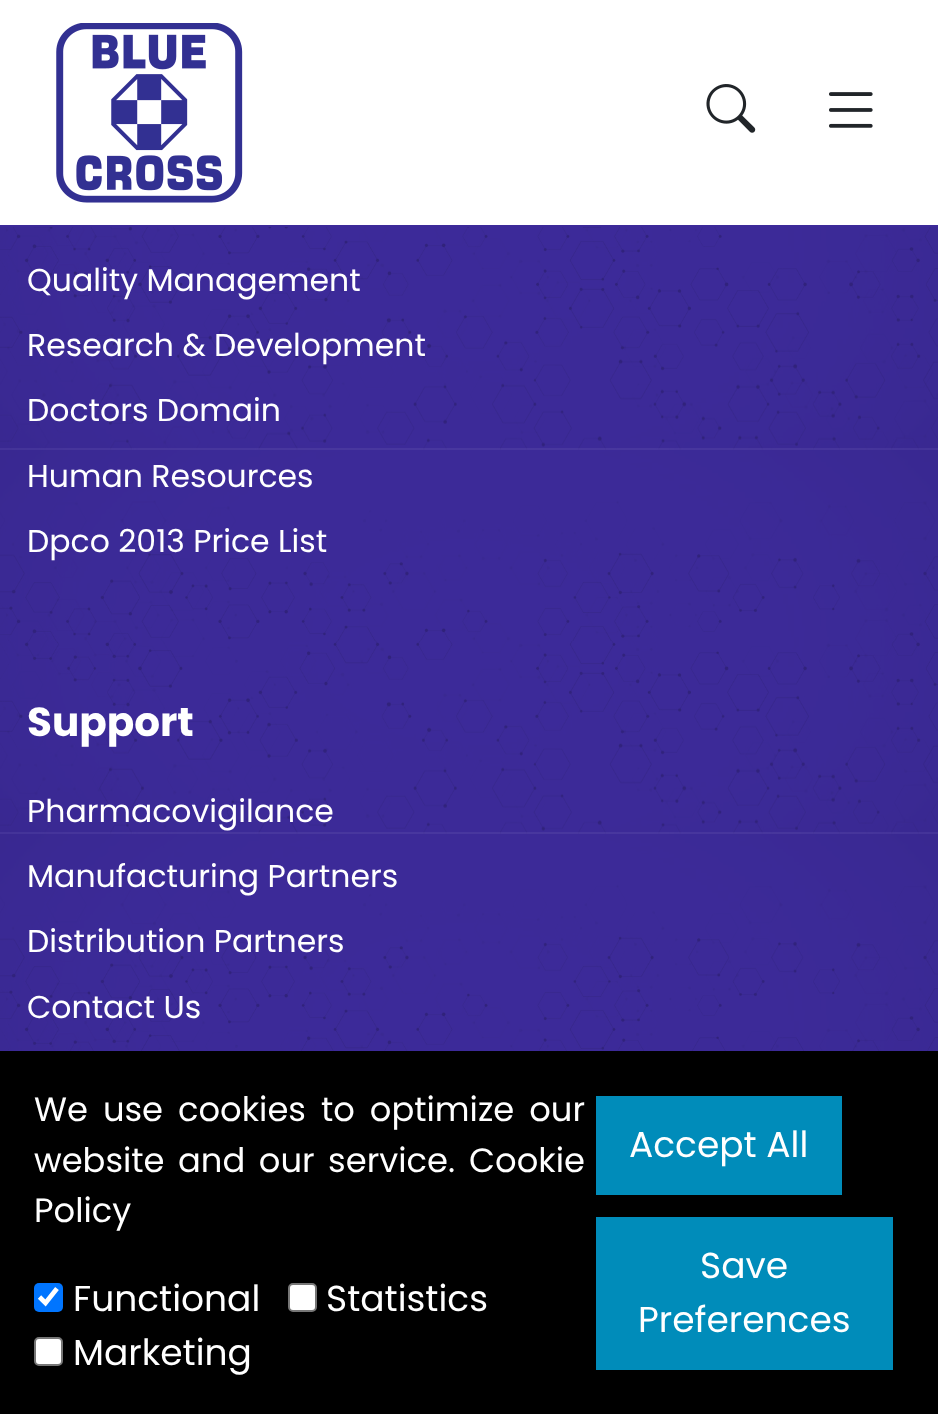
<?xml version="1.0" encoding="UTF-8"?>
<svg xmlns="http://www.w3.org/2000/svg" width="938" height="1414">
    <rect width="100%" height="100%" fill="#3C2A99"/>
    <rect x="0" y="0" width="938" height="225" fill="#FFFFFF"/>
    <image x="56" y="23" width="187" height="180" href="img_01.png"/>
    <image x="706" y="84" width="50" height="49" href="img_02.png"/>
    <image x="829" y="92" width="44" height="36" href="img_03.png"/>
    <image x="0" y="227" width="938" height="824" href="img_04.png"/>
    <text x="27" y="291" font-family="Poppins" font-size="31.5" fill="#FFFFFF">Quality Management</text>
    <text x="27" y="356" font-family="Poppins" font-size="31.5" fill="#FFFFFF">Research &amp; Development</text>
    <text x="27" y="421" font-family="Poppins" font-size="31.5" fill="#FFFFFF">Doctors Domain</text>
    <text x="27" y="487" font-family="Poppins" font-size="31.5" fill="#FFFFFF">Human Resources</text>
    <text x="27" y="552" font-family="Poppins" font-size="31.5" fill="#FFFFFF">Dpco 2013 Price List</text>
    <text x="27" y="736" font-family="Poppins" font-size="40.5" font-weight="700" fill="#FFFFFF">Support</text>
    <text x="27" y="822" font-family="Poppins" font-size="31.5" fill="#FFFFFF">Pharmacovigilance</text>
    <text x="27" y="887" font-family="Poppins" font-size="31.5" fill="#FFFFFF">Manufacturing Partners</text>
    <text x="27" y="952" font-family="Poppins" font-size="31.5" fill="#FFFFFF">Distribution Partners</text>
    <text x="27" y="1018" font-family="Poppins" font-size="31.5" fill="#FFFFFF">Contact Us</text>
    <rect x="0" y="1051" width="938" height="363" fill="#000000"/>
    <text font-family="Poppins" font-size="33.75" fill="#FFFFFF">
        <tspan x="34" y="1121" word-spacing="6">We use cookies to optimize our</tspan>
        <tspan x="34" y="1172" word-spacing="4.5">website and our service.</tspan>
    </text>
    <text x="469" y="1172" font-family="Poppins" font-size="33.75" fill="#FFFFFF">Cookie</text>
    <text x="34" y="1222" font-family="Poppins" font-size="33.75" fill="#FFFFFF">Policy</text>
    <rect x="34" y="1283" width="29" height="29" rx="5" fill="#0075FF"/>
    <path d="M 39.5 1297 L 45.5 1303 L 57 1288.5" fill="none" stroke="#FFFFFF" stroke-width="4.7"/>
    <text x="73" y="1311" font-family="Poppins" font-size="36" fill="#FFFFFF">Functional</text>
    <rect x="289" y="1284" width="27" height="27" rx="4" fill="#FFFFFF" stroke="#767676" stroke-width="2"/>
    <text x="326" y="1311" font-family="Poppins" font-size="36" fill="#FFFFFF">Statistics</text>
    <rect x="35" y="1338" width="27" height="27" rx="4" fill="#FFFFFF" stroke="#767676" stroke-width="2"/>
    <text x="73" y="1365" font-family="Poppins" font-size="36" fill="#FFFFFF">Marketing</text>
    <rect x="596" y="1096" width="246" height="99" fill="#008CBA"/>
    <text x="629" y="1157" font-family="Poppins" font-size="36" fill="#FFFFFF">Accept All</text>
    <rect x="596" y="1217" width="297" height="153" fill="#008CBA"/>
    <text x="700" y="1278" font-family="Poppins" font-size="36" fill="#FFFFFF">Save</text>
    <text x="638" y="1332" font-family="Poppins" font-size="36" fill="#FFFFFF">Preferences</text>
</svg>
